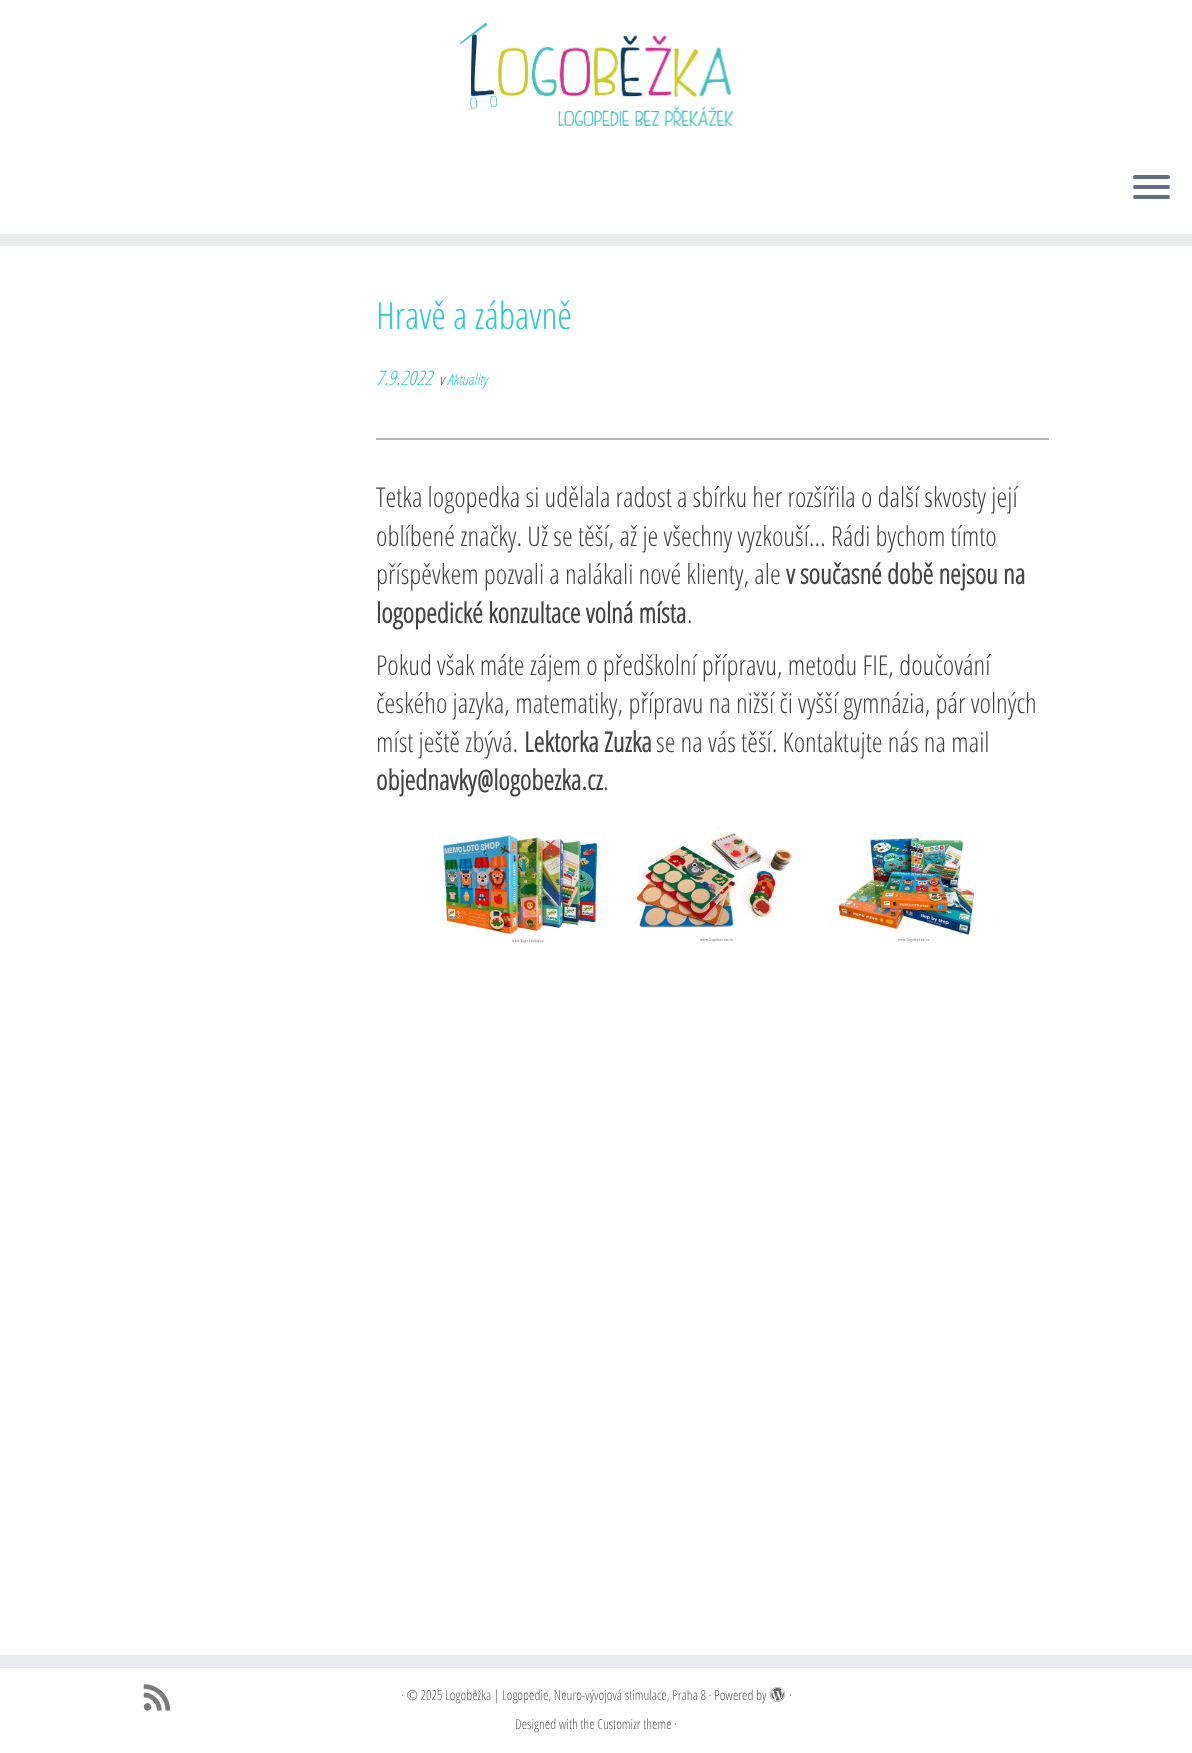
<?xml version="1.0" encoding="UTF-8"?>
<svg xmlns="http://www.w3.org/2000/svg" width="1192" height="1753">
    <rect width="100%" height="100%" fill="#FFFFFF"/>
    <rect x="0" y="234" width="1192" height="12" fill="#E9EAEE"/>
    <image x="459" y="22" width="275" height="105" href="img_01.png"/>
    <rect x="1133" y="175" width="37" height="4" rx="2" fill="#5F6F81"/>
    <rect x="1133" y="185" width="37" height="4" rx="2" fill="#5F6F81"/>
    <rect x="1133" y="195" width="37" height="4" rx="2" fill="#5F6F81"/>
    <text x="376" y="329" font-family="Open Sans Condensed" font-size="37.5" font-weight="300" fill="#27CBCD">Hravě a zábavně</text>
    <text x="376" y="385" font-family="Open Sans Condensed" font-size="20" font-weight="300" font-style="italic" fill="#27CBCD">7.9.2022</text>
    <text x="439" y="385" font-family="Open Sans Condensed" font-size="15" font-weight="300" font-style="italic" fill="#444444">v</text>
    <text x="447" y="385" font-family="Open Sans Condensed" font-size="15" font-weight="300" font-style="italic" fill="#27CBCD">Aktuality</text>
    <rect x="376" y="438" width="673" height="2" fill="#B7B7B6"/>
    <text font-family="Open Sans Condensed" font-size="27.5" font-weight="300" fill="#444444">
        <tspan x="376" y="507">Tetka logopedka si udělala radost a sbírku her rozšířila o další skvosty její</tspan>
        <tspan x="376" y="546">oblíbené značky. Už se těší, až je všechny vyzkouší… Rádi bychom tímto</tspan>
        <tspan x="376" y="584">příspěvkem pozvali a nalákali nové klienty, ale</tspan>
    </text>
    <text x="786" y="584" font-family="Open Sans Condensed" font-size="27.5" font-weight="700" fill="#444444">v současné době nejsou na</text>
    <text x="376" y="623" font-family="Open Sans Condensed" font-size="27.5" font-weight="700" fill="#444444">logopedické konzultace volná místa</text>
    <text x="687" y="623" font-family="Open Sans Condensed" font-size="27.5" font-weight="300" fill="#444444">.</text>
    <text font-family="Open Sans Condensed" font-size="27.5" font-weight="300" fill="#444444">
        <tspan x="376" y="675">Pokud však máte zájem o předškolní přípravu, metodu FIE, doučování</tspan>
        <tspan x="376" y="713">českého jazyka, matematiky, přípravu na nižší či vyšší gymnázia, pár volných</tspan>
        <tspan x="376" y="752">míst ještě zbývá.</tspan>
    </text>
    <text x="524" y="752" font-family="Open Sans Condensed" font-size="27.5" font-weight="700" fill="#444444">Lektorka Zuzka</text>
    <text x="656" y="752" font-family="Open Sans Condensed" font-size="27.5" font-weight="300" fill="#444444">se na vás těší. Kontaktujte nás na mail</text>
    <text x="376" y="790" font-family="Open Sans Condensed" font-size="27.5" font-weight="700" fill="#444444">objednavky@logobezka.cz</text>
    <text x="603" y="790" font-family="Open Sans Condensed" font-size="27.5" font-weight="300" fill="#444444">.</text>
    <image x="443" y="835" width="155" height="109" href="img_02.png"/>
    <image x="632" y="827" width="161" height="115" href="img_03.png"/>
    <image x="829" y="837" width="170" height="105" href="img_04.png"/>
    <rect x="0" y="1655" width="1192" height="13" fill="#E9EAEE"/>
    <image x="143" y="1684" width="28" height="27" href="img_05.png"/>
    <text x="401" y="1700" font-family="Open Sans Condensed" font-size="13.75" font-weight="300" fill="#5A5A5A">· © 2025 Logoběžka | Logopedie, Neuro-vývojová stimulace, Praha 8 · Powered by</text>
    <image x="770" y="1687" width="15" height="15" href="img_06.png"/>
    <text x="789" y="1700" font-family="Open Sans Condensed" font-size="13.75" font-weight="300" fill="#5A5A5A">·</text>
    <text x="515" y="1729" font-family="Open Sans Condensed" font-size="13.75" font-weight="300" fill="#5A5A5A">Designed with the Customizr theme ·</text>
</svg>
